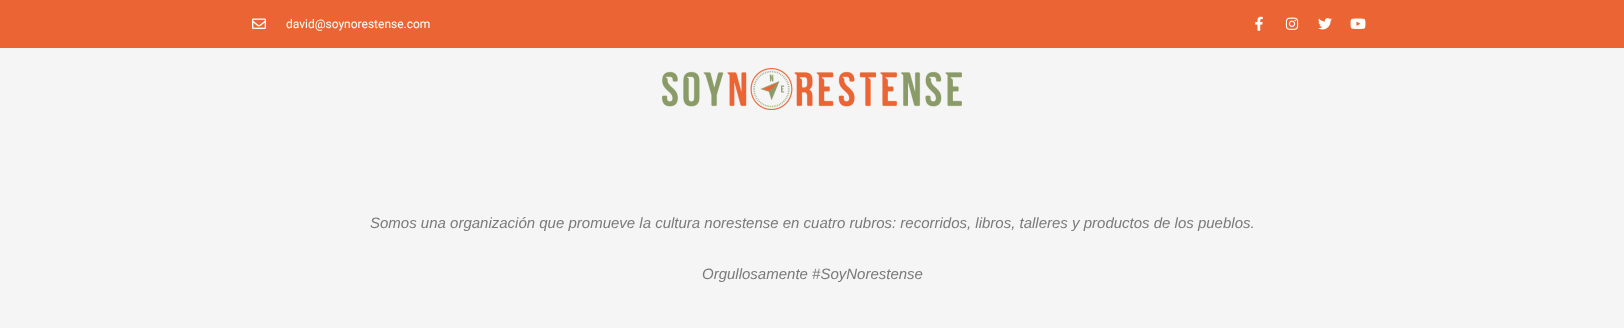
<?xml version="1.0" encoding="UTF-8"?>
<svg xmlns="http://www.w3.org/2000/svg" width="1624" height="328">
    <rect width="100%" height="100%" fill="#F5F5F5"/>
    <rect x="0" y="0" width="1624" height="48" fill="#EB6534"/>
    <image x="252" y="18" width="14" height="11" href="img_01.png"/>
    <text x="286" y="28" font-family="Roboto" font-size="12" fill="#FFFFFF">david@soynorestense.com</text>
    <image x="1255" y="16" width="8" height="15" href="img_02.png"/>
    <image x="1285" y="17" width="14" height="13" href="img_03.png"/>
    <image x="1318" y="18" width="14" height="12" href="img_04.png"/>
    <image x="1350" y="18" width="16" height="11" href="img_05.png"/>
    <image x="662" y="68" width="300" height="42" href="img_06.png"/>
    <text x="370" y="228" font-family="Liberation Sans" font-size="15" font-style="italic" fill="#7A7A7A">Somos una organización que promueve la cultura norestense en cuatro rubros: recorridos, libros, talleres y productos de los pueblos.</text>
    <text x="702" y="279" font-family="Liberation Sans" font-size="15" font-style="italic" fill="#7A7A7A">Orgullosamente #SoyNorestense</text>
</svg>
